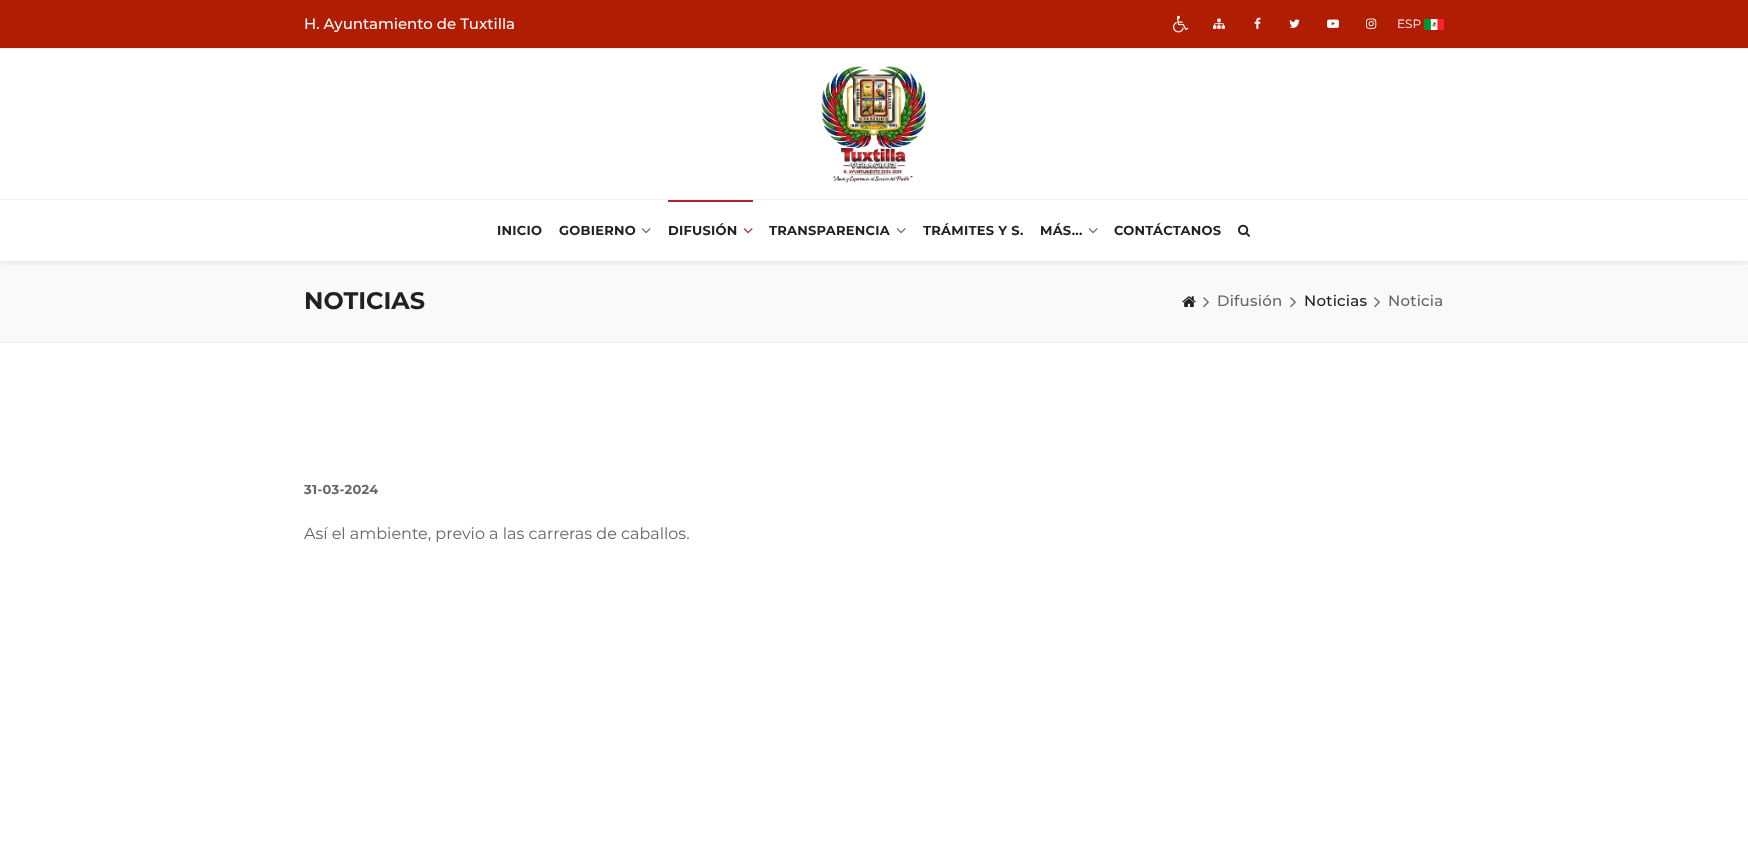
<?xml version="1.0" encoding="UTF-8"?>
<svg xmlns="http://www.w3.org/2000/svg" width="1748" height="842">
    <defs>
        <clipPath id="clip1"><rect x="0" y="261" width="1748" height="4"/></clipPath>
        <filter id="blur1" x="-50%" y="-200%" width="200%" height="500%"><feGaussianBlur stdDeviation="4"/></filter>
    </defs>
    <rect width="100%" height="100%" fill="#FFFFFF"/>
    <rect x="0" y="0" width="1748" height="48" fill="#B01D03"/>
    <rect x="0" y="48" width="1748" height="1" fill="#EFEFEF"/>
    <text x="304" y="29" font-family="Montserrat" font-size="15" font-weight="500" fill="#FFFFFF">H. Ayuntamiento de Tuxtilla</text>
    <image x="1173" y="15" width="16" height="18" href="img_01.png"/>
    <image x="1213" y="18" width="12" height="11" href="img_02.png"/>
    <image x="1254" y="17" width="7" height="12" href="img_03.png"/>
    <image x="1289" y="19" width="11" height="9" href="img_04.png"/>
    <image x="1327" y="19" width="12" height="9" href="img_05.png"/>
    <image x="1366" y="18" width="11" height="11" href="img_06.png"/>
    <text x="1397" y="28" font-family="Montserrat" font-size="12" fill="#FFFFFF">ESP</text>
    <image x="1424" y="19" width="20" height="11" href="img_07.png"/>
    <rect x="0" y="261" width="1748" height="81" fill="#F9F9F9"/>
    <g clip-path="url(#clip1)">
        <rect x="0" y="201" width="1748" height="61" fill="#000000" fill-opacity="0.1" filter="url(#blur1)"/>
    </g>
    <rect x="0" y="196" width="1748" height="3" fill="#FFFFFF"/>
    <rect x="0" y="199" width="1748" height="1" fill="#EFEFEF"/>
    <image x="821" y="66" width="105" height="117" href="img_08.png"/>
    <text x="497" y="235" font-family="Montserrat" font-size="13" font-weight="700" letter-spacing="0.25" fill="#212121">INICIO</text>
    <text x="559" y="235" font-family="Montserrat" font-size="13" font-weight="700" letter-spacing="0.25" fill="#212121">GOBIERNO</text>
    <image x="641" y="228" width="10" height="6" href="img_09.png"/>
    <rect x="668" y="200" width="85" height="2" fill="#B72125"/>
    <text x="668" y="235" font-family="Montserrat" font-size="13" font-weight="700" letter-spacing="0.25" fill="#212121">DIFUSIÓN</text>
    <image x="743" y="228" width="10" height="6" href="img_10.png"/>
    <text x="769" y="235" font-family="Montserrat" font-size="13" font-weight="700" letter-spacing="0.25" fill="#212121">TRANSPARENCIA</text>
    <image x="896" y="228" width="10" height="6" href="img_09.png"/>
    <text x="923" y="235" font-family="Montserrat" font-size="13" font-weight="700" letter-spacing="0.25" fill="#212121">TRÁMITES Y S.</text>
    <text x="1040" y="235" font-family="Montserrat" font-size="13" font-weight="700" letter-spacing="0.25" fill="#212121">MÁS...</text>
    <image x="1088" y="228" width="10" height="6" href="img_09.png"/>
    <text x="1114" y="235" font-family="Montserrat" font-size="13" font-weight="700" letter-spacing="0.25" fill="#212121">CONTÁCTANOS</text>
    <image x="1238" y="224" width="12" height="13" href="img_11.png"/>
    <rect x="0" y="342" width="1748" height="1" fill="#EFEFEF"/>
    <text x="304" y="309" font-family="Montserrat" font-size="24" font-weight="700" fill="#212121">NOTICIAS</text>
    <image x="1182" y="296" width="14" height="11" href="img_12.png"/>
    <image x="1203" y="297" width="6" height="11" href="img_13.png"/>
    <text x="1217" y="306" font-family="Montserrat" font-size="15" font-weight="500" letter-spacing="0.25" fill="#666666">Difusión</text>
    <image x="1290" y="297" width="6" height="11" href="img_13.png"/>
    <text x="1304" y="306" font-family="Montserrat" font-size="15" font-weight="500" letter-spacing="0.25" fill="#212121">Noticias</text>
    <image x="1374" y="297" width="6" height="11" href="img_13.png"/>
    <text x="1388" y="306" font-family="Montserrat" font-size="15" font-weight="500" letter-spacing="0.25" fill="#666666">Noticia</text>
    <text x="304" y="494" font-family="Montserrat" font-size="13" font-weight="700" letter-spacing="0.25" fill="#666666">31-03-2024</text>
    <text x="304" y="539" font-family="Montserrat" font-size="16" fill="#666666">Así el ambiente, previo a las carreras de caballos.</text>
</svg>
